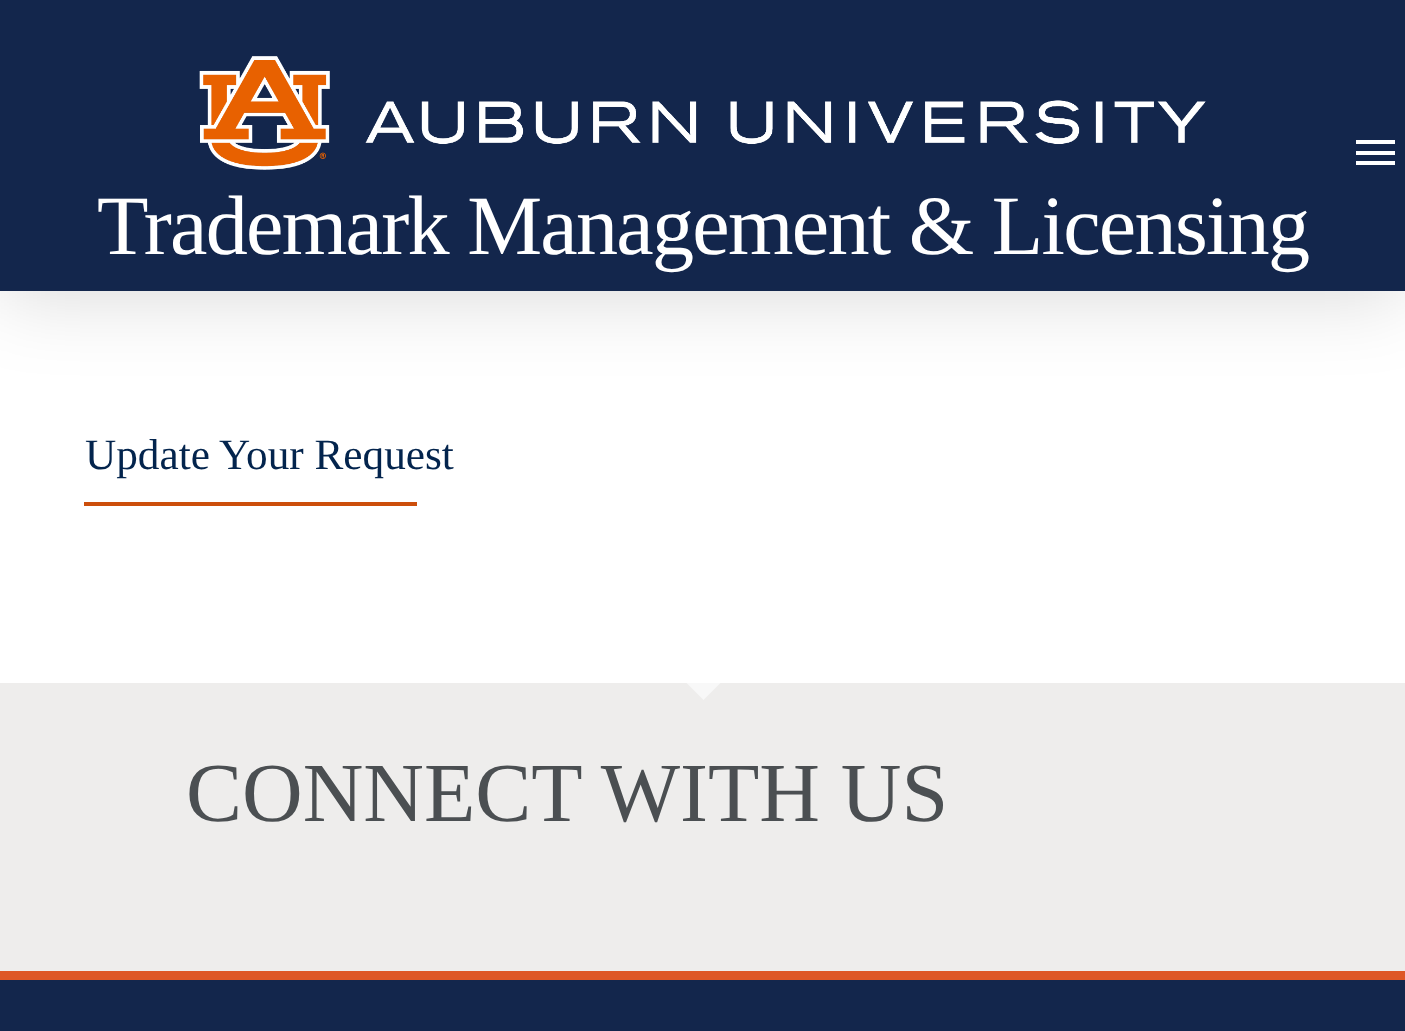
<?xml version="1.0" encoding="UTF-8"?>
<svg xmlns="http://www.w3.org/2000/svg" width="1405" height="1031">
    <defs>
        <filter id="blur1" x="-50%" y="-200%" width="200%" height="500%"><feGaussianBlur stdDeviation="39.5"/></filter>
    </defs>
    <rect width="100%" height="100%" fill="#13264C"/>
    <rect x="0" y="683" width="1405" height="288" fill="#EEEDEC"/>
    <path d="M 686 682.5 H 721 L 703.5 700 Z" fill="#F8F8F8"/>
    <rect x="0" y="291" width="1405" height="392" fill="#FFFFFF"/>
    <rect x="0" y="5" width="1405" height="291" fill="#000000" fill-opacity="0.15" filter="url(#blur1)"/>
    <rect x="0" y="0" width="1405" height="291" fill="#13264C"/>
    <rect x="1356" y="140" width="39" height="4" fill="#FFFFFF"/>
    <rect x="1356" y="161" width="39" height="4" fill="#FFFFFF"/>
    <rect x="1356" y="151" width="39" height="4" fill="#FFFFFF"/>
    <image x="199" y="56" width="1007" height="114" href="img_01.png"/>
    <text x="97" y="254" font-family="Liberation Serif" font-size="84.25" letter-spacing="-1.75" fill="#FFFFFF">Trademark Management &amp; Licensing</text>
    <text x="85" y="469" font-family="Liberation Serif" font-size="43.25" fill="#03244D">Update Your Request</text>
    <rect x="84" y="502" width="333" height="4" fill="#CC4E0B"/>
    <text x="186" y="821" font-family="Liberation Serif" font-size="84" fill="#4B4F52">CONNECT WITH US</text>
    <rect x="0" y="971" width="1405" height="9" fill="#DE5726"/>
</svg>
